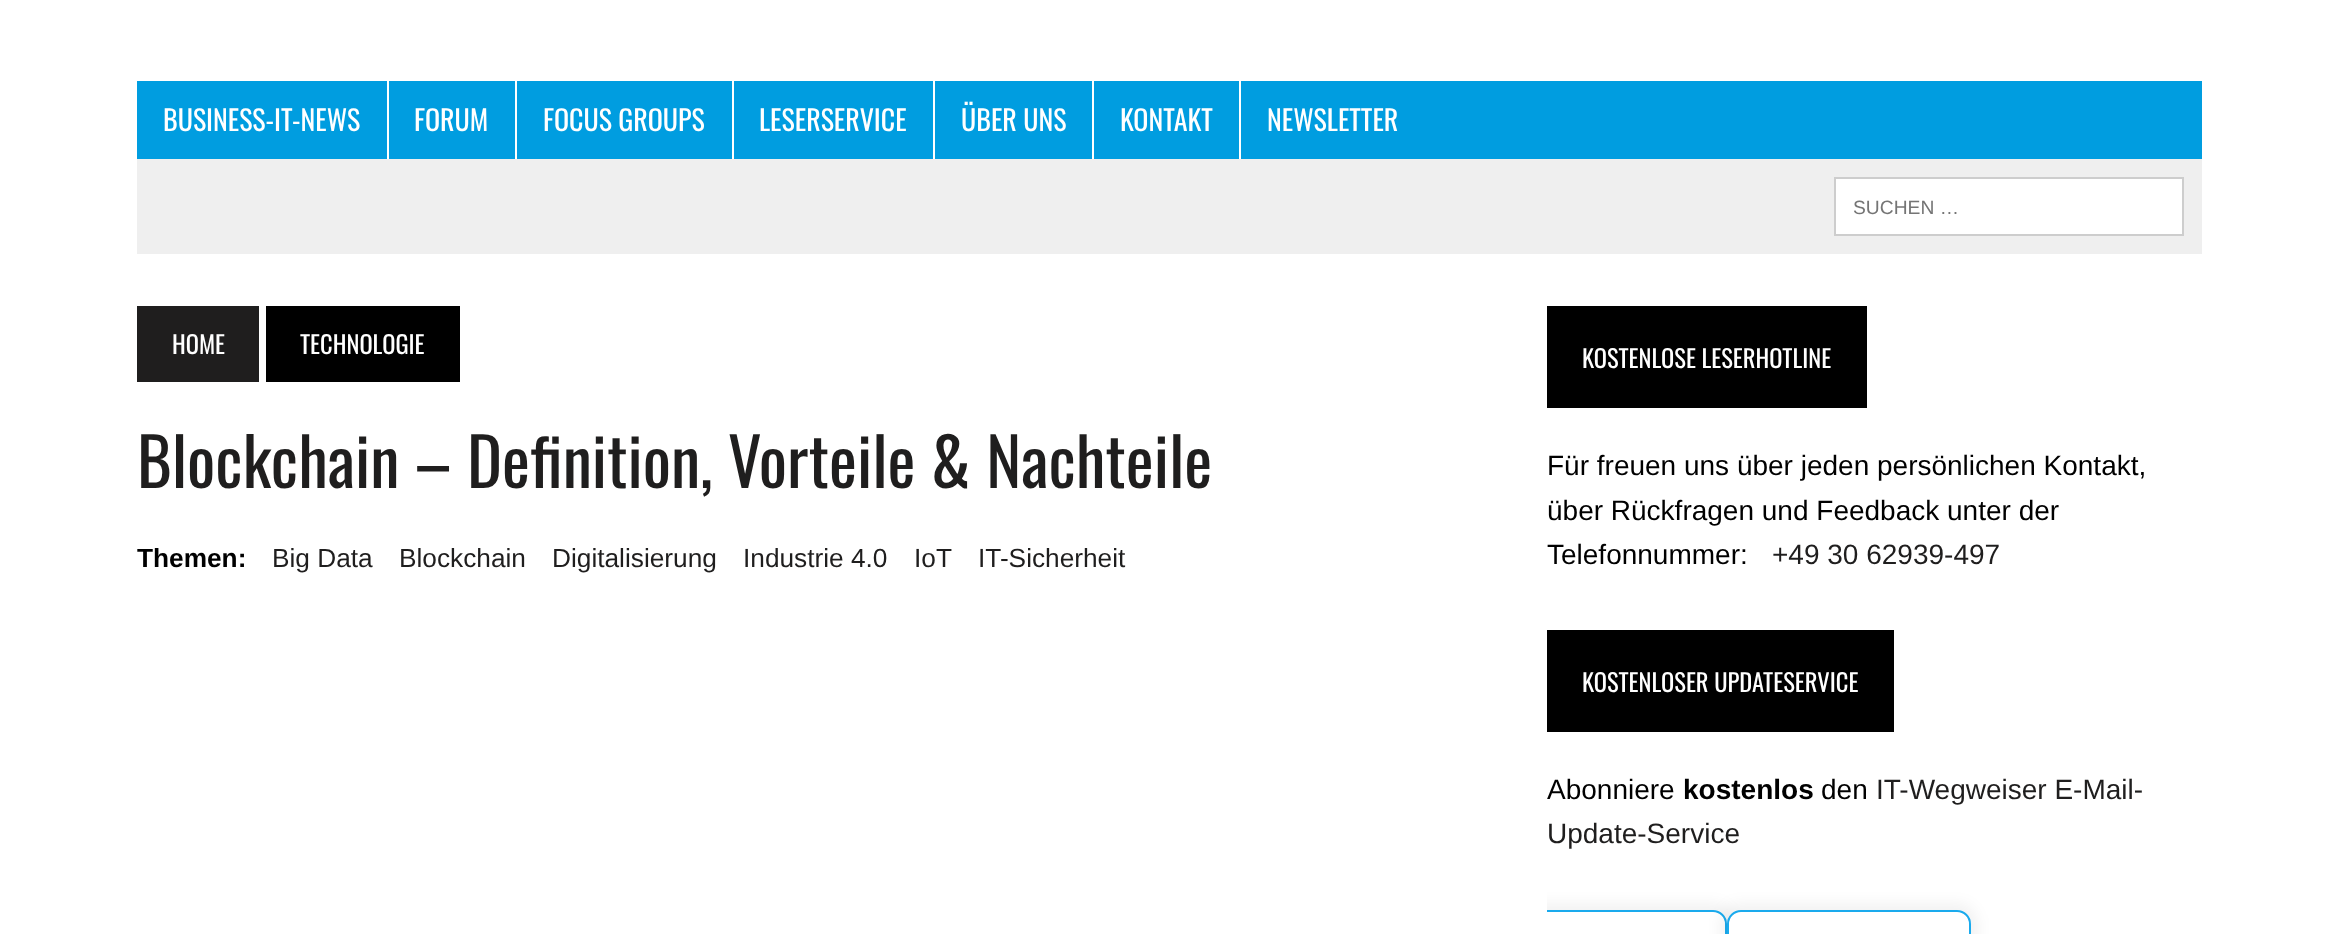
<?xml version="1.0" encoding="UTF-8"?>
<svg xmlns="http://www.w3.org/2000/svg" width="2337" height="934">
    <defs>
        <clipPath id="clip1"><rect x="137" y="537" width="1359" height="51"/></clipPath>
        <clipPath id="clip2"><rect x="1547" y="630" width="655" height="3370"/></clipPath>
        <filter id="blur1" x="-50%" y="-200%" width="200%" height="500%"><feGaussianBlur stdDeviation="7"/></filter>
        <clipPath id="clip3"><rect x="1547" y="630" width="655" height="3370"/></clipPath>
    </defs>
    <rect width="100%" height="100%" fill="#FFFFFF"/>
    <rect x="137" y="81" width="2065" height="78" fill="#009DE0"/>
    <text x="163" y="131" font-family="Oswald" font-size="28" fill="#FFFFFF">BUSINESS-IT-NEWS</text>
    <rect x="387" y="81" width="2" height="78" fill="#FFFFFF"/>
    <text x="414" y="131" font-family="Oswald" font-size="28" fill="#FFFFFF">FORUM</text>
    <rect x="515" y="81" width="2" height="78" fill="#FFFFFF"/>
    <text x="543" y="131" font-family="Oswald" font-size="28" fill="#FFFFFF">FOCUS GROUPS</text>
    <rect x="732" y="81" width="2" height="78" fill="#FFFFFF"/>
    <text x="759" y="131" font-family="Oswald" font-size="28" fill="#FFFFFF">LESERSERVICE</text>
    <rect x="933" y="81" width="2" height="78" fill="#FFFFFF"/>
    <text x="961" y="131" font-family="Oswald" font-size="28" fill="#FFFFFF">ÜBER UNS</text>
    <rect x="1092" y="81" width="2" height="78" fill="#FFFFFF"/>
    <text x="1120" y="131" font-family="Oswald" font-size="28" fill="#FFFFFF">KONTAKT</text>
    <rect x="1239" y="81" width="2" height="78" fill="#FFFFFF"/>
    <text x="1267" y="131" font-family="Oswald" font-size="28" fill="#FFFFFF">NEWSLETTER</text>
    <rect x="137" y="159" width="2065" height="95" fill="#EFEFEF"/>
    <rect x="1835" y="178" width="348" height="57" fill="#FFFFFF" stroke="#CDCDCD" stroke-width="2"/>
    <text x="1853" y="214" font-family="Liberation Sans" font-size="19.25" fill="#757575">SUCHEN …</text>
    <rect x="137" y="306" width="122" height="76" fill="#1F1E1E"/>
    <text x="172" y="354" font-family="Oswald" font-size="24.5" fill="#FFFFFF">HOME</text>
    <rect x="266" y="306" width="194" height="76" fill="#000000"/>
    <text x="300" y="354" font-family="Oswald" font-size="24.5" fill="#FFFFFF">TECHNOLOGIE</text>
    <text x="137" y="488" font-family="Oswald" font-size="66.5" fill="#1F1E1E">Blockchain – Definition, Vorteile &amp; Nachteile</text>
    <g clip-path="url(#clip1)">
        <text x="137" y="567" font-family="Liberation Sans" font-size="26.25" font-weight="700" fill="#000000">Themen:</text>
    </g>
    <text x="272" y="567" font-family="Liberation Sans" font-size="26.25" fill="#1F1E1E">Big Data</text>
    <text x="399" y="567" font-family="Liberation Sans" font-size="26.25" fill="#1F1E1E">Blockchain</text>
    <text x="552" y="567" font-family="Liberation Sans" font-size="26.25" fill="#1F1E1E">Digitalisierung</text>
    <text x="743" y="567" font-family="Liberation Sans" font-size="26.25" fill="#1F1E1E">Industrie 4.0</text>
    <text x="914" y="567" font-family="Liberation Sans" font-size="26.25" fill="#1F1E1E">IoT</text>
    <text x="978" y="567" font-family="Liberation Sans" font-size="26.25" fill="#1F1E1E">IT-Sicherheit</text>
    <rect x="1547" y="306" width="320" height="102" fill="#000000"/>
    <text x="1582" y="368" font-family="Oswald" font-size="24.5" fill="#FFFFFF">KOSTENLOSE LESERHOTLINE</text>
    <text font-family="Liberation Sans" font-size="28" fill="#000000">
        <tspan x="1547" y="475">Für freuen uns über jeden persönlichen Kontakt,</tspan>
        <tspan x="1547" y="520">über Rückfragen und Feedback unter der</tspan>
        <tspan x="1547" y="564">Telefonnummer:</tspan>
    </text>
    <text x="1772" y="564" font-family="Liberation Sans" font-size="28" fill="#1F1E1E">+49 30 62939-497</text>
    <rect x="1547" y="630" width="347" height="102" fill="#000000"/>
    <text x="1582" y="692" font-family="Oswald" font-size="24.5" fill="#FFFFFF">KOSTENLOSER UPDATESERVICE</text>
    <text x="1547" y="799" font-family="Liberation Sans" font-size="28" fill="#000000">Abonniere</text>
    <text x="1683" y="799" font-family="Liberation Sans" font-size="28" font-weight="700" fill="#000000">kostenlos</text>
    <text x="1821" y="799" font-family="Liberation Sans" font-size="28" fill="#000000">den</text>
    <text x="1876" y="799" font-family="Liberation Sans" font-size="28" fill="#1F1E1E">IT-Wegweiser E-Mail-</text>
    <text x="1547" y="843" font-family="Liberation Sans" font-size="28" fill="#1F1E1E">Update-Service</text>
    <g clip-path="url(#clip2)">
        <rect x="1446" y="903" width="288" height="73" rx="21" fill="#000000" fill-opacity="0.05" filter="url(#blur1)"/>
    </g>
    <path d="M 1547 910 H 1713 C 1720.5 910 1727 916.5 1727 924 V 934 C 1727 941.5 1720.5 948 1713 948 H 1547 Z" fill="#FFFFFF"/>
    <g clip-path="url(#clip3)">
        <rect x="1454" y="911" width="272" height="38" rx="13" fill="none" stroke="#1AAAED" stroke-width="2"/>
    </g>
    <rect x="1720" y="903" width="258" height="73" rx="21" fill="#000000" fill-opacity="0.05" filter="url(#blur1)"/>
    <rect x="1728" y="911" width="242" height="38" rx="13" fill="#FFFFFF" stroke="#1AAAED" stroke-width="2"/>
</svg>
